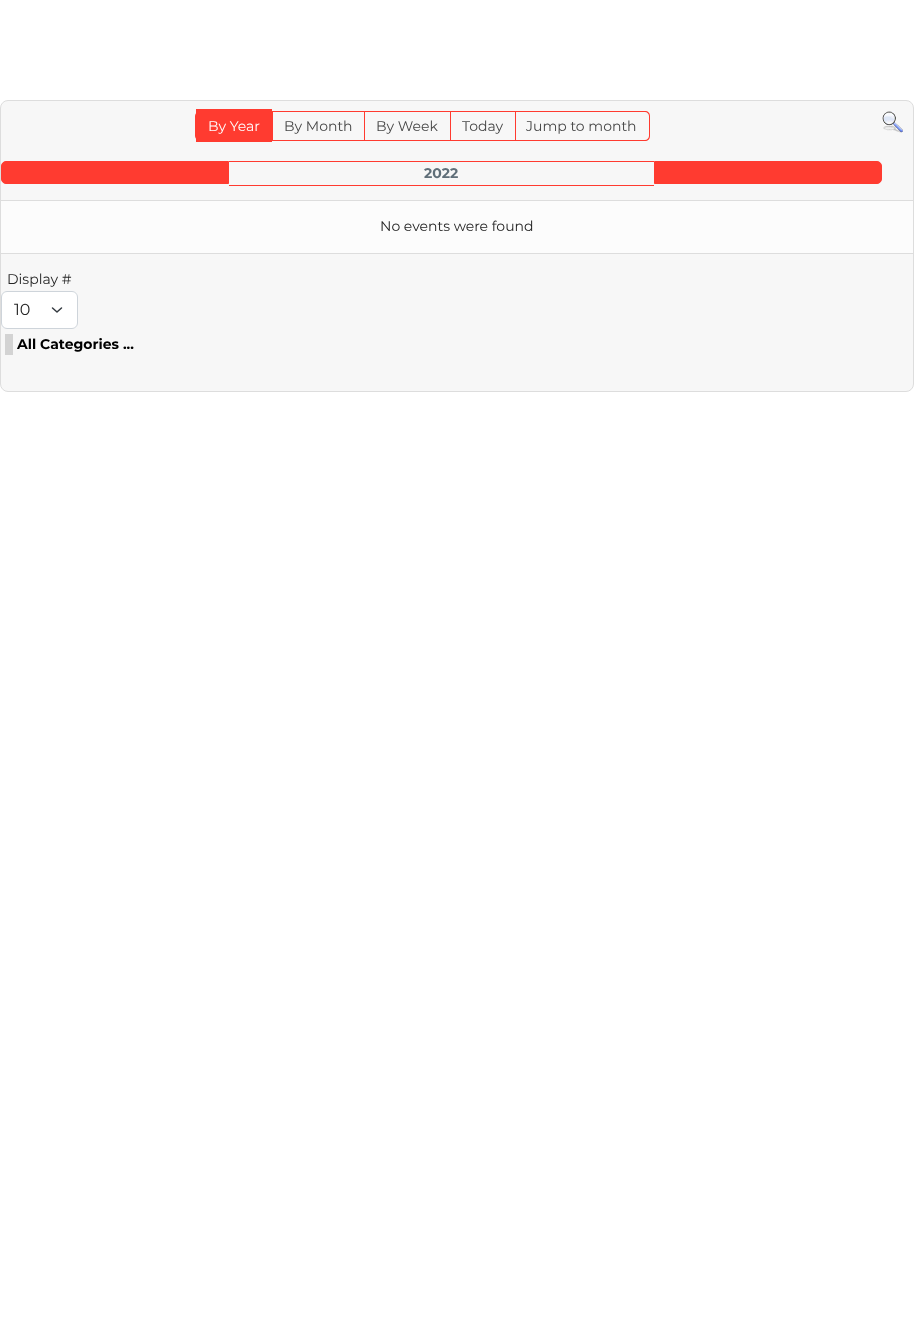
<?xml version="1.0" encoding="UTF-8"?>
<svg xmlns="http://www.w3.org/2000/svg" width="914" height="1326">
    <rect width="100%" height="100%" fill="#FFFFFF"/>
    <rect x="0.5" y="100.5" width="913" height="291" rx="7.5" fill="#F7F7F7" stroke="#DDDDDD"/>
    <path d="M 200 111.5 H 272.5 V 140.5 H 200 C 197.5 140.5 195.5 138.5 195.5 136 V 116 C 195.5 113.5 197.5 111.5 200 111.5 Z" fill="none" stroke="#FF3B30"/>
    <rect x="196" y="109" width="76" height="33" fill="#FF3B30"/>
    <text x="208" y="131" font-family="Montserrat" font-size="14" fill="#FFFFFF">By Year</text>
    <rect x="272" y="111" width="93" height="1" fill="#FF3B30"/>
    <rect x="364" y="111" width="1" height="30" fill="#FF3B30"/>
    <rect x="272" y="140" width="93" height="1" fill="#FF3B30"/>
    <text x="284" y="131" font-family="Montserrat" font-size="14" fill="#474747">By Month</text>
    <rect x="364" y="111" width="87" height="1" fill="#FF3B30"/>
    <rect x="450" y="111" width="1" height="30" fill="#FF3B30"/>
    <rect x="364" y="140" width="87" height="1" fill="#FF3B30"/>
    <text x="376" y="131" font-family="Montserrat" font-size="14" fill="#474747">By Week</text>
    <rect x="450" y="111" width="66" height="1" fill="#FF3B30"/>
    <rect x="515" y="111" width="1" height="30" fill="#FF3B30"/>
    <rect x="450" y="140" width="66" height="1" fill="#FF3B30"/>
    <text x="462" y="131" font-family="Montserrat" font-size="14" fill="#474747">Today</text>
    <path d="M 514 111 H 645 C 648 111 650 113 650 116 V 136 C 650 139 648 141 645 141 H 514 Z M 514 112 H 645 C 647 112 649 114 649 116 V 136 C 649 138 647 140 645 140 H 514 Z" fill="#FF3B30" fill-rule="evenodd"/>
    <text x="526" y="131" font-family="Montserrat" font-size="14" fill="#474747">Jump to month</text>
    <image x="882" y="111" width="21" height="22" href="img_01.png"/>
    <path d="M 6 161.5 H 228.5 V 183.5 H 6 C 3.5 183.5 1.5 181.5 1.5 179 V 166 C 1.5 163.5 3.5 161.5 6 161.5 Z" fill="#FF3B30" stroke="#FF3B30"/>
    <rect x="229" y="161" width="425" height="1" fill="#FF3B30"/>
    <rect x="229" y="185" width="425" height="1" fill="#FF3B30"/>
    <text x="424" y="178" font-family="Montserrat" font-size="14" font-weight="700" fill="#606F79">2022</text>
    <path d="M 654.5 161.5 H 877 C 879.5 161.5 881.5 163.5 881.5 166 V 179 C 881.5 181.5 879.5 183.5 877 183.5 H 654.5 Z" fill="#FF3B30" stroke="#FF3B30"/>
    <rect x="0.5" y="200.5" width="913" height="53" fill="#FCFCFC" stroke="#DDDDDD"/>
    <text x="380" y="231" font-family="Montserrat" font-size="14" fill="#252525">No events were found</text>
    <text x="7" y="284" font-family="Montserrat" font-size="14" fill="#252525">Display #</text>
    <rect x="1" y="291" width="77" height="38" rx="6" fill="#FFFFFF"/>
    <path d="M 52.5 308 L 57 312 L 61.5 308" fill="none" stroke="#343A40" stroke-width="1.5" stroke-linecap="round" stroke-linejoin="round"/>
    <rect x="1.5" y="291.5" width="76" height="37" rx="5.5" fill="none" stroke="#CED4DA"/>
    <text x="14" y="315" font-family="Montserrat" font-size="16" fill="#252525">10</text>
    <rect x="5" y="334" width="8" height="21" fill="#D3D3D3"/>
    <text x="17" y="349" font-family="Montserrat" font-size="14" font-weight="700" fill="#000000">All Categories ...</text>
</svg>
